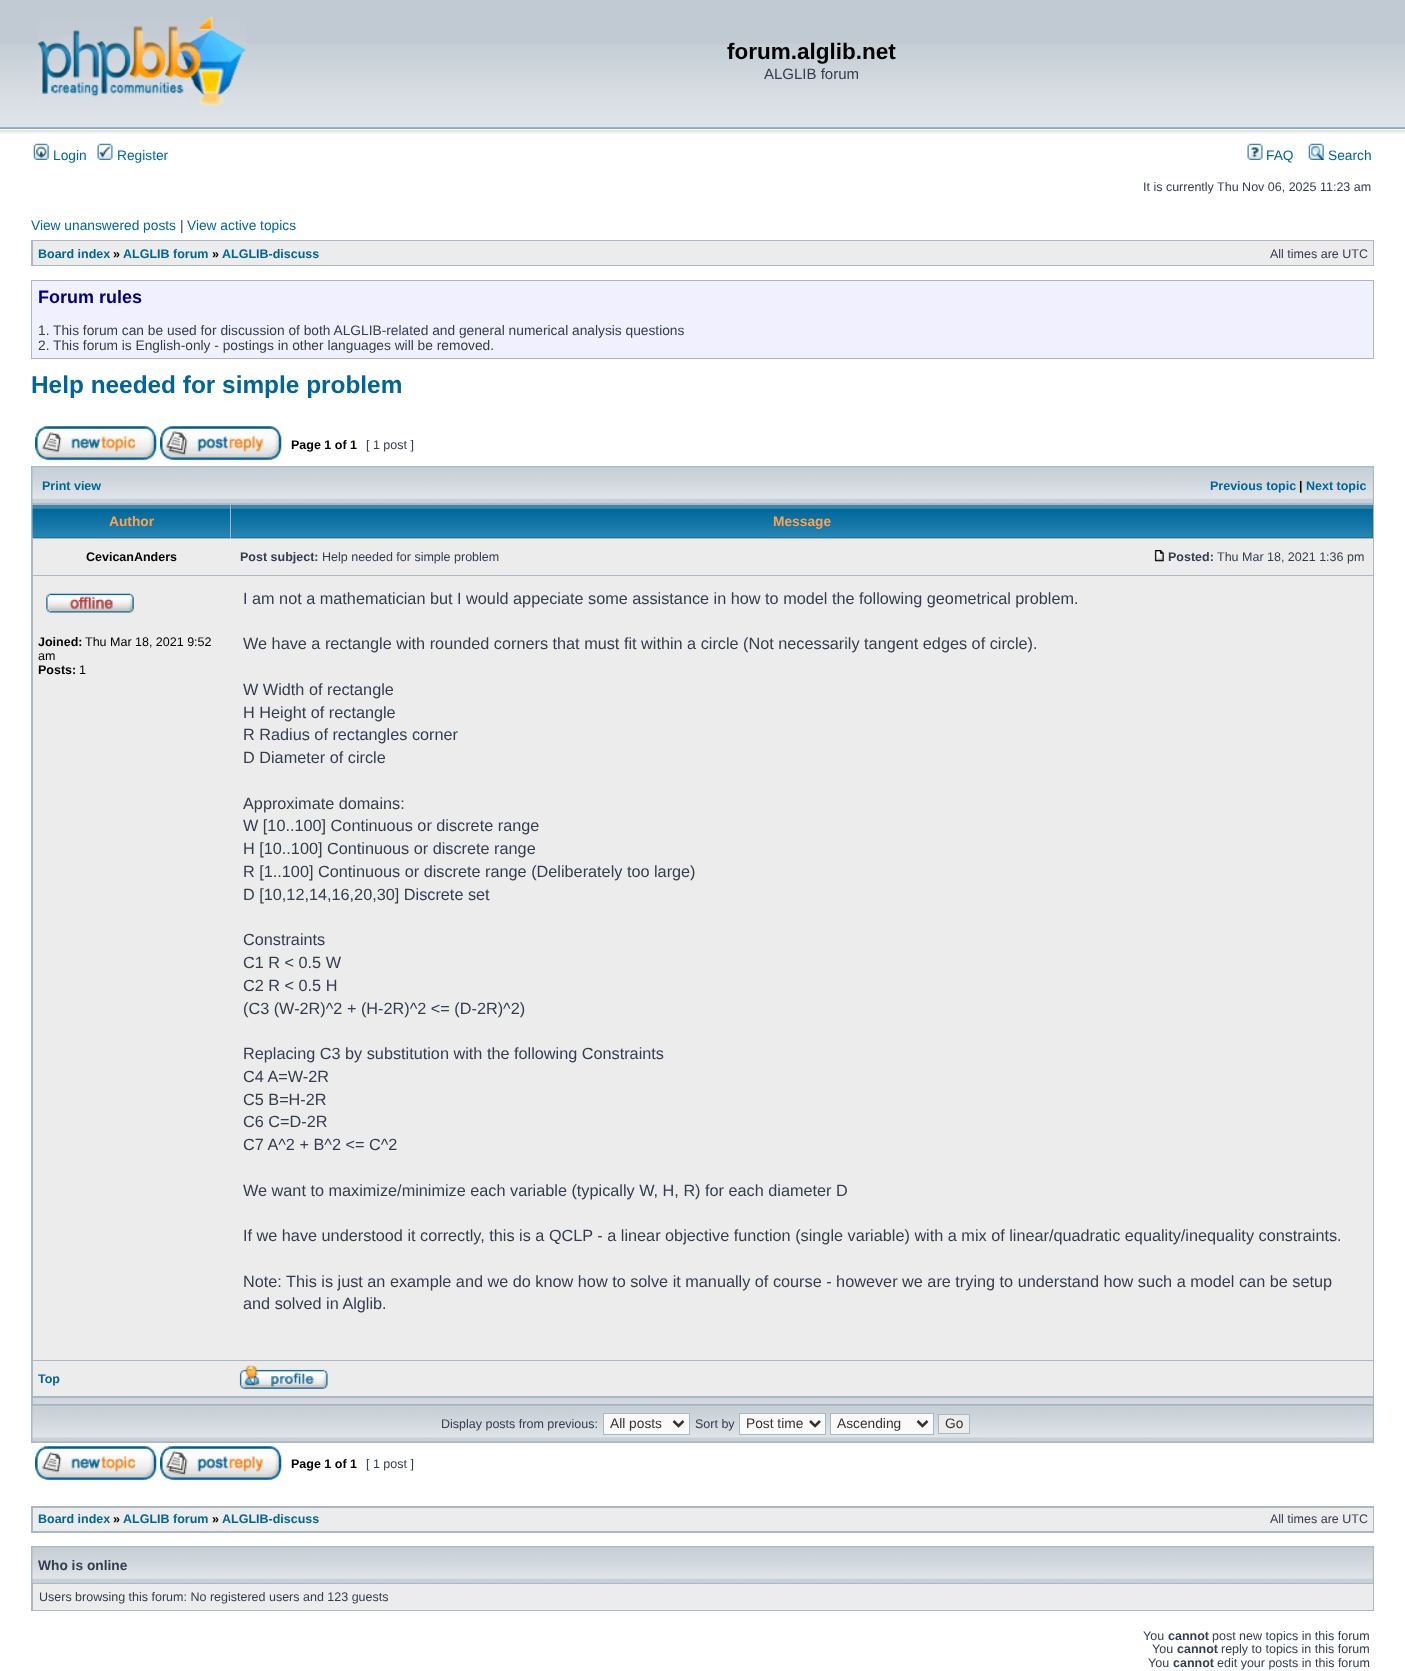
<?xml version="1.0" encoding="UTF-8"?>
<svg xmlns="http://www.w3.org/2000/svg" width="1405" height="1671">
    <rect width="100%" height="100%" fill="#FFFFFF"/>
    <rect x="0" y="0" width="1405" height="44" fill="#C1CAD2"/>
    <image x="0" y="44" width="1405" height="97" href="img_01.png"/>
    <image x="37" y="17" width="210" height="89" href="img_02.png"/>
    <text x="727" y="59" font-family="Liberation Sans" font-size="22.5" font-weight="700" fill="#000000">forum.alglib.net</text>
    <text x="764" y="79" font-family="Liberation Sans" font-size="15" fill="#323D4F">ALGLIB forum</text>
    <image x="33" y="143" width="16" height="17" href="img_03.png"/>
    <text x="53" y="160" font-family="Liberation Sans" font-size="13.75" fill="#006597">Login</text>
    <image x="97" y="143" width="16" height="17" href="img_04.png"/>
    <text x="117" y="160" font-family="Liberation Sans" font-size="13.75" fill="#006597">Register</text>
    <image x="1247" y="143" width="16" height="17" href="img_05.png"/>
    <text x="1266" y="160" font-family="Liberation Sans" font-size="13.75" fill="#006597">FAQ</text>
    <image x="1308" y="143" width="16" height="17" href="img_06.png"/>
    <text x="1328" y="160" font-family="Liberation Sans" font-size="13.75" fill="#006597">Search</text>
    <text x="1143" y="191" font-family="Liberation Sans" font-size="12.5" fill="#323D4F">It is currently Thu Nov 06, 2025 11:23 am</text>
    <text x="31" y="230" font-family="Liberation Sans" font-size="13.75" fill="#006597">View unanswered posts</text>
    <text x="180" y="230" font-family="Liberation Sans" font-size="13.75" fill="#323D4F">|</text>
    <text x="187" y="230" font-family="Liberation Sans" font-size="13.75" fill="#006597">View active topics</text>
    <rect x="31" y="240" width="1343" height="26" fill="#A9B8C2"/>
    <rect x="33" y="241" width="1340" height="24" fill="#ECECEC"/>
    <text x="38" y="258" font-family="Liberation Sans" font-size="12.5" font-weight="700" fill="#006597">Board index</text>
    <text x="113" y="258" font-family="Liberation Sans" font-size="12.5" font-weight="700" fill="#000000">»</text>
    <text x="123" y="258" font-family="Liberation Sans" font-size="12.5" font-weight="700" fill="#006597">ALGLIB forum</text>
    <text x="212" y="258" font-family="Liberation Sans" font-size="12.5" font-weight="700" fill="#000000">»</text>
    <text x="222" y="258" font-family="Liberation Sans" font-size="12.5" font-weight="700" fill="#006597">ALGLIB-discuss</text>
    <text x="1270" y="258" font-family="Liberation Sans" font-size="12.5" fill="#323D4F">All times are UTC</text>
    <rect x="31.5" y="280.5" width="1342" height="78" fill="#F0F0FF" stroke="#A9B8C2"/>
    <text x="38" y="303" font-family="Liberation Sans" font-size="18" font-weight="700" fill="#000080">Forum rules</text>
    <text font-family="Liberation Sans" font-size="13.75" fill="#323D4F">
        <tspan x="38" y="335">1. This forum can be used for discussion of both ALGLIB-related and general numerical analysis questions</tspan>
        <tspan x="38" y="350">2. This forum is English-only - postings in other languages will be removed.</tspan>
    </text>
    <text x="31" y="393" font-family="Liberation Sans" font-size="24.4" font-weight="700" fill="#006597">Help needed for simple problem</text>
    <image x="35" y="426" width="122" height="34" href="img_07.png"/>
    <image x="160" y="426" width="122" height="34" href="img_08.png"/>
    <text x="291" y="449" font-family="Liberation Sans" font-size="12.5" font-weight="700" fill="#000000">Page 1 of 1</text>
    <text x="366" y="449" font-family="Liberation Sans" font-size="12.5" fill="#323D4F">[ 1 post ]</text>
    <rect x="31" y="466" width="1343" height="977" fill="#A9B8C2"/>
    <rect x="33" y="468" width="1340" height="35" fill="#C7D0D7"/>
    <image x="32" y="467" width="1341" height="36" href="img_09.png"/>
    <text x="42" y="490" font-family="Liberation Sans" font-size="12.5" font-weight="700" fill="#006597">Print view</text>
    <text x="1210" y="490" font-family="Liberation Sans" font-size="12.5" font-weight="700" fill="#006597">Previous topic</text>
    <text x="1299" y="490" font-family="Liberation Sans" font-size="12.5" font-weight="700" fill="#000000">|</text>
    <text x="1306" y="490" font-family="Liberation Sans" font-size="12.5" font-weight="700" fill="#006597">Next topic</text>
    <rect x="33" y="537" width="197" height="1" fill="#006699"/>
    <image x="32" y="505" width="198" height="33" href="img_10.png"/>
    <text x="109" y="526" font-family="Liberation Sans" font-size="13.75" font-weight="700" fill="#FFA34F">Author</text>
    <rect x="231" y="505" width="1142" height="33" fill="#006699"/>
    <image x="231" y="505" width="1142" height="33" href="img_11.png"/>
    <text x="773" y="526" font-family="Liberation Sans" font-size="13.75" font-weight="700" fill="#FFA34F">Message</text>
    <rect x="33" y="539" width="1340" height="36" fill="#ECECEC"/>
    <text x="86" y="561" font-family="Liberation Sans" font-size="12.5" font-weight="700" fill="#000000">CevicanAnders</text>
    <text x="240" y="561" font-family="Liberation Sans" font-size="12.5" font-weight="700" fill="#323D4F">Post subject:</text>
    <text x="322" y="561" font-family="Liberation Sans" font-size="12.5" fill="#323D4F">Help needed for simple problem</text>
    <image x="1154" y="550" width="10" height="12" href="img_12.png"/>
    <text x="1168" y="561" font-family="Liberation Sans" font-size="12.5" font-weight="700" fill="#323D4F">Posted:</text>
    <text x="1217" y="561" font-family="Liberation Sans" font-size="12.5" fill="#323D4F">Thu Mar 18, 2021 1:36 pm</text>
    <rect x="33" y="576" width="1340" height="784" fill="#ECECEC"/>
    <image x="46" y="593" width="88" height="20" href="img_13.png"/>
    <text x="38" y="646" font-family="Liberation Sans" font-size="12.5" font-weight="700" fill="#000000">Joined:</text>
    <text x="85" y="646" font-family="Liberation Sans" font-size="12.5" fill="#000000">Thu Mar 18, 2021 9:52</text>
    <text x="38" y="660" font-family="Liberation Sans" font-size="12.5" fill="#000000">am</text>
    <text x="38" y="674" font-family="Liberation Sans" font-size="12.5" font-weight="700" fill="#000000">Posts:</text>
    <text x="79" y="674" font-family="Liberation Sans" font-size="12.5" fill="#000000">1</text>
    <text x="243" y="604" font-family="Liberation Sans" font-size="16.25" fill="#323D4F">I am not a mathematician but I would appeciate some assistance in how to model the following geometrical problem.</text>
    <text x="243" y="649" font-family="Liberation Sans" font-size="16.25" fill="#323D4F">We have a rectangle with rounded corners that must fit within a circle (Not necessarily tangent edges of circle).</text>
    <text font-family="Liberation Sans" font-size="16.25" fill="#323D4F">
        <tspan x="243" y="695">W Width of rectangle</tspan>
        <tspan x="243" y="718">H Height of rectangle</tspan>
        <tspan x="243" y="740">R Radius of rectangles corner</tspan>
        <tspan x="243" y="763">D Diameter of circle</tspan>
    </text>
    <text font-family="Liberation Sans" font-size="16.25" fill="#323D4F">
        <tspan x="243" y="809">Approximate domains:</tspan>
        <tspan x="243" y="831">W [10..100] Continuous or discrete range</tspan>
        <tspan x="243" y="854">H [10..100] Continuous or discrete range</tspan>
        <tspan x="243" y="877">R [1..100] Continuous or discrete range (Deliberately too large)</tspan>
        <tspan x="243" y="900">D [10,12,14,16,20,30] Discrete set</tspan>
    </text>
    <text font-family="Liberation Sans" font-size="16.25" fill="#323D4F">
        <tspan x="243" y="945">Constraints</tspan>
        <tspan x="243" y="968">C1 R &lt; 0.5 W</tspan>
        <tspan x="243" y="991">C2 R &lt; 0.5 H</tspan>
        <tspan x="243" y="1014">(C3 (W-2R)^2 + (H-2R)^2 &lt;= (D-2R)^2)</tspan>
    </text>
    <text font-family="Liberation Sans" font-size="16.25" fill="#323D4F">
        <tspan x="243" y="1059">Replacing C3 by substitution with the following Constraints</tspan>
        <tspan x="243" y="1082">C4 A=W-2R</tspan>
        <tspan x="243" y="1105">C5 B=H-2R</tspan>
        <tspan x="243" y="1127">C6 C=D-2R</tspan>
        <tspan x="243" y="1150">C7 A^2 + B^2 &lt;= C^2</tspan>
    </text>
    <text x="243" y="1196" font-family="Liberation Sans" font-size="16.25" fill="#323D4F">We want to maximize/minimize each variable (typically W, H, R) for each diameter D</text>
    <text x="243" y="1241" font-family="Liberation Sans" font-size="16.25" fill="#323D4F">If we have understood it correctly, this is a QCLP - a linear objective function (single variable) with a mix of linear/quadratic equality/inequality constraints.</text>
    <text font-family="Liberation Sans" font-size="16.25" fill="#323D4F">
        <tspan x="243" y="1287">Note: This is just an example and we do know how to solve it manually of course - however we are trying to understand how such a model can be setup</tspan>
        <tspan x="243" y="1309">and solved in Alglib.</tspan>
    </text>
    <rect x="33" y="1361" width="1340" height="35" fill="#ECECEC"/>
    <text x="38" y="1383" font-family="Liberation Sans" font-size="12.5" font-weight="700" fill="#006597">Top</text>
    <image x="239" y="1365" width="89" height="24" href="img_14.png"/>
    <rect x="33" y="1398" width="1340" height="6" fill="#D1D7DC"/>
    <rect x="33" y="1406" width="1340" height="35" fill="#C7D0D7"/>
    <image x="32" y="1406" width="1341" height="36" href="img_15.png"/>
    <text x="441" y="1428" font-family="Liberation Sans" font-size="12.5" fill="#323D4F">Display posts from previous:</text>
    <rect x="603.5" y="1413.5" width="86" height="21" fill="#FAFAFA" stroke="#A9B8C2"/>
    <path d="M 673.5 1421 L 678.5 1426 L 683.5 1421" fill="none" stroke="#333333" stroke-width="2.5"/>
    <text x="610" y="1428" font-family="Liberation Sans" font-size="13.75" fill="#333333">All posts</text>
    <text x="695" y="1428" font-family="Liberation Sans" font-size="12.5" fill="#323D4F">Sort by</text>
    <rect x="739.5" y="1413.5" width="86" height="21" fill="#FAFAFA" stroke="#A9B8C2"/>
    <path d="M 810 1421 L 815 1426 L 820 1421" fill="none" stroke="#333333" stroke-width="2.5"/>
    <text x="746" y="1428" font-family="Liberation Sans" font-size="13.75" fill="#333333">Post time</text>
    <rect x="830.5" y="1413.5" width="103" height="21" fill="#FAFAFA" stroke="#A9B8C2"/>
    <path d="M 917.5 1421 L 922.5 1426 L 927.5 1421" fill="none" stroke="#333333" stroke-width="2.5"/>
    <text x="837" y="1428" font-family="Liberation Sans" font-size="13.75" fill="#333333">Ascending</text>
    <rect x="938.5" y="1414.5" width="31" height="19" fill="#ECECEC" stroke="#A9B8C2"/>
    <text x="945" y="1428" font-family="Liberation Sans" font-size="13.75" fill="#333333">Go</text>
    <image x="35" y="1446" width="122" height="34" href="img_07.png"/>
    <image x="160" y="1446" width="122" height="34" href="img_08.png"/>
    <text x="291" y="1468" font-family="Liberation Sans" font-size="12.5" font-weight="700" fill="#000000">Page 1 of 1</text>
    <text x="366" y="1468" font-family="Liberation Sans" font-size="12.5" fill="#323D4F">[ 1 post ]</text>
    <rect x="31" y="1506" width="1343" height="27" fill="#A9B8C2"/>
    <rect x="33" y="1508" width="1340" height="23" fill="#ECECEC"/>
    <text x="38" y="1523" font-family="Liberation Sans" font-size="12.5" font-weight="700" fill="#006597">Board index</text>
    <text x="113" y="1523" font-family="Liberation Sans" font-size="12.5" font-weight="700" fill="#000000">»</text>
    <text x="123" y="1523" font-family="Liberation Sans" font-size="12.5" font-weight="700" fill="#006597">ALGLIB forum</text>
    <text x="212" y="1523" font-family="Liberation Sans" font-size="12.5" font-weight="700" fill="#000000">»</text>
    <text x="222" y="1523" font-family="Liberation Sans" font-size="12.5" font-weight="700" fill="#006597">ALGLIB-discuss</text>
    <text x="1270" y="1523" font-family="Liberation Sans" font-size="12.5" fill="#323D4F">All times are UTC</text>
    <rect x="31" y="1546" width="1343" height="65" fill="#A9B8C2"/>
    <rect x="33" y="1548" width="1340" height="35" fill="#C7D0D7"/>
    <image x="32" y="1547" width="1341" height="36" href="img_09.png"/>
    <text x="38" y="1570" font-family="Liberation Sans" font-size="13.75" font-weight="700" fill="#323D4F">Who is online</text>
    <rect x="33" y="1584" width="1340" height="26" fill="#ECECEC"/>
    <text x="39" y="1601" font-family="Liberation Sans" font-size="12.5" fill="#323D4F">Users browsing this forum: No registered users and 123 guests</text>
    <text x="1143" y="1640" font-family="Liberation Sans" font-size="12.5" fill="#323D4F">You</text>
    <text x="1168" y="1640" font-family="Liberation Sans" font-size="12.5" font-weight="700" fill="#323D4F">cannot</text>
    <text x="1212" y="1640" font-family="Liberation Sans" font-size="12.5" fill="#323D4F">post new topics in this forum</text>
    <text x="1152" y="1653" font-family="Liberation Sans" font-size="12.5" fill="#323D4F">You</text>
    <text x="1177" y="1653" font-family="Liberation Sans" font-size="12.5" font-weight="700" fill="#323D4F">cannot</text>
    <text x="1221" y="1653" font-family="Liberation Sans" font-size="12.5" fill="#323D4F">reply to topics in this forum</text>
    <text x="1148" y="1667" font-family="Liberation Sans" font-size="12.5" fill="#323D4F">You</text>
    <text x="1173" y="1667" font-family="Liberation Sans" font-size="12.5" font-weight="700" fill="#323D4F">cannot</text>
    <text x="1217" y="1667" font-family="Liberation Sans" font-size="12.5" fill="#323D4F">edit your posts in this forum</text>
</svg>
